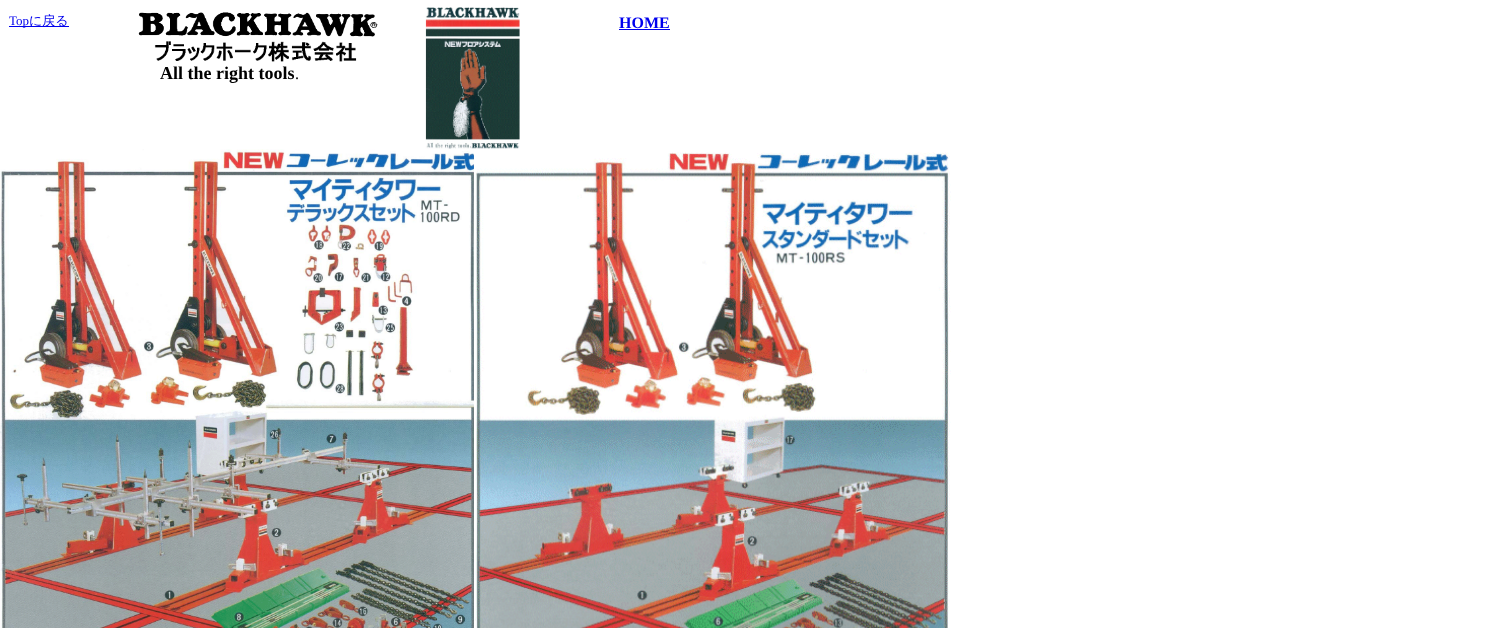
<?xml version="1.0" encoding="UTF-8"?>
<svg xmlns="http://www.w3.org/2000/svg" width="1493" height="628">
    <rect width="100%" height="100%" fill="#FFFFFF"/>
    <rect x="9" y="26" width="60" height="1" fill="#0000EE"/>
    <text x="9" y="25" font-family="Liberation Serif" font-size="13" fill="#0000EE">Top</text>
    <text x="29" y="25" font-family="WenQuanYi Zen Hei" font-size="13" font-weight="500" fill="#0000EE">に戻る</text>
    <image x="138" y="12" width="240" height="25" href="img_01.png"/>
    <image x="425" y="7" width="95" height="142" href="img_02.png"/>
    <text x="619" y="28" font-family="Liberation Serif" font-size="16" font-weight="700" fill="#0000EE">HOME</text>
    <rect x="619" y="29" width="51" height="1" fill="#0000EE"/>
    <image x="154" y="41" width="203" height="21" href="img_03.png"/>
    <text x="160" y="79" font-family="Liberation Serif" font-size="18" font-weight="700" fill="#000000">All the right tools</text>
    <text x="295" y="79" font-family="Liberation Serif" font-size="16" fill="#000000">.</text>
    <image x="0" y="149" width="478" height="479" href="img_04.png"/>
    <image x="474" y="152" width="477" height="476" href="img_05.png"/>
</svg>
